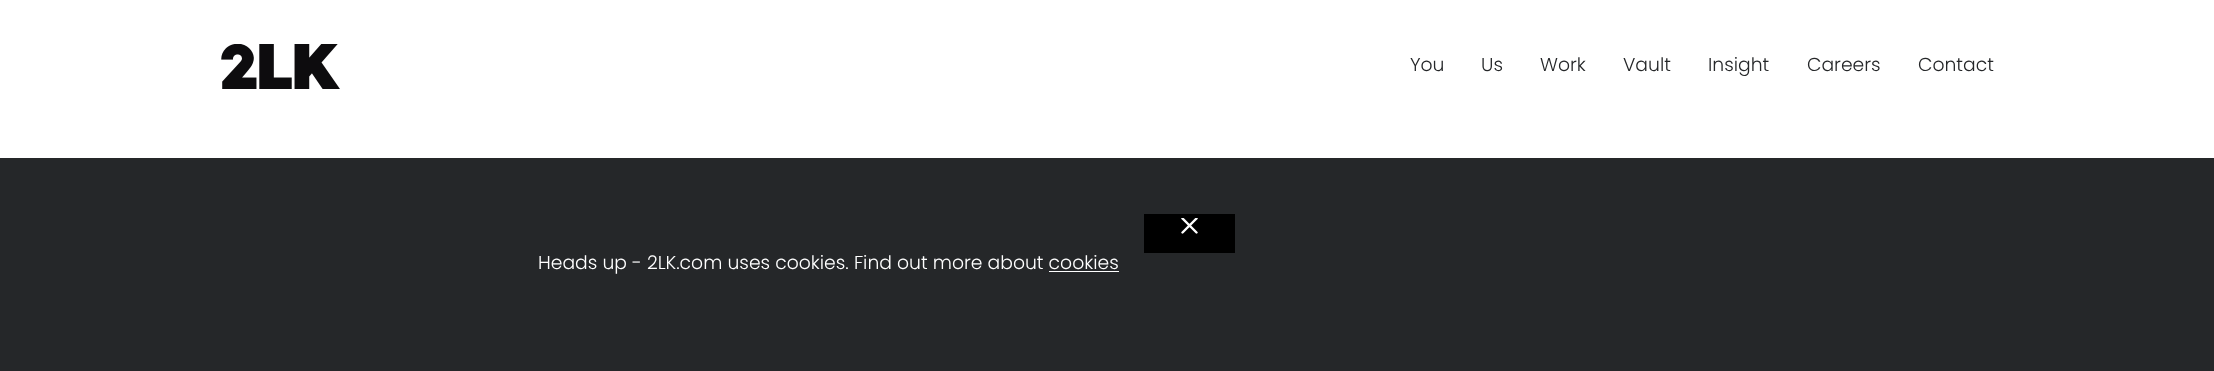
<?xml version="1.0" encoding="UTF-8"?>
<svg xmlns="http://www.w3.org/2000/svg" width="2214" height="371">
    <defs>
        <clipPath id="clip1"><rect x="1181" y="218" width="17" height="16"/></clipPath>
    </defs>
    <rect width="100%" height="100%" fill="#FFFFFF"/>
    <image x="221" y="44" width="119" height="45" href="img_01.png"/>
    <text x="1410" y="71" font-family="Poppins" font-size="18.75" font-weight="300" fill="#252729">You</text>
    <text x="1481" y="71" font-family="Poppins" font-size="18.75" font-weight="300" fill="#252729">Us</text>
    <text x="1540" y="71" font-family="Poppins" font-size="18.75" font-weight="300" fill="#252729">Work</text>
    <text x="1623" y="71" font-family="Poppins" font-size="18.75" font-weight="300" fill="#252729">Vault</text>
    <text x="1708" y="71" font-family="Poppins" font-size="18.75" font-weight="300" fill="#252729">Insight</text>
    <text x="1807" y="71" font-family="Poppins" font-size="18.75" font-weight="300" fill="#252729">Careers</text>
    <text x="1918" y="71" font-family="Poppins" font-size="18.75" font-weight="300" fill="#252729">Contact</text>
    <rect x="0" y="158" width="2214" height="213" fill="#252729"/>
    <rect x="1144" y="214" width="91" height="39" fill="#000000"/>
    <g clip-path="url(#clip1)">
        <path d="M 1182.5 218.5 L 1196.5 232.5 M 1182.5 232.5 L 1196.5 218.5" fill="none" stroke="#FFFFFF" stroke-width="2.4" stroke-linecap="round"/>
    </g>
    <text x="538" y="269" font-family="Poppins" font-size="18.75" font-weight="300" fill="#FFFFFF">Heads up - 2LK.com uses cookies. Find out more about cookies</text>
    <rect x="1049" y="271" width="70" height="1" fill="#FFFFFF"/>
</svg>
